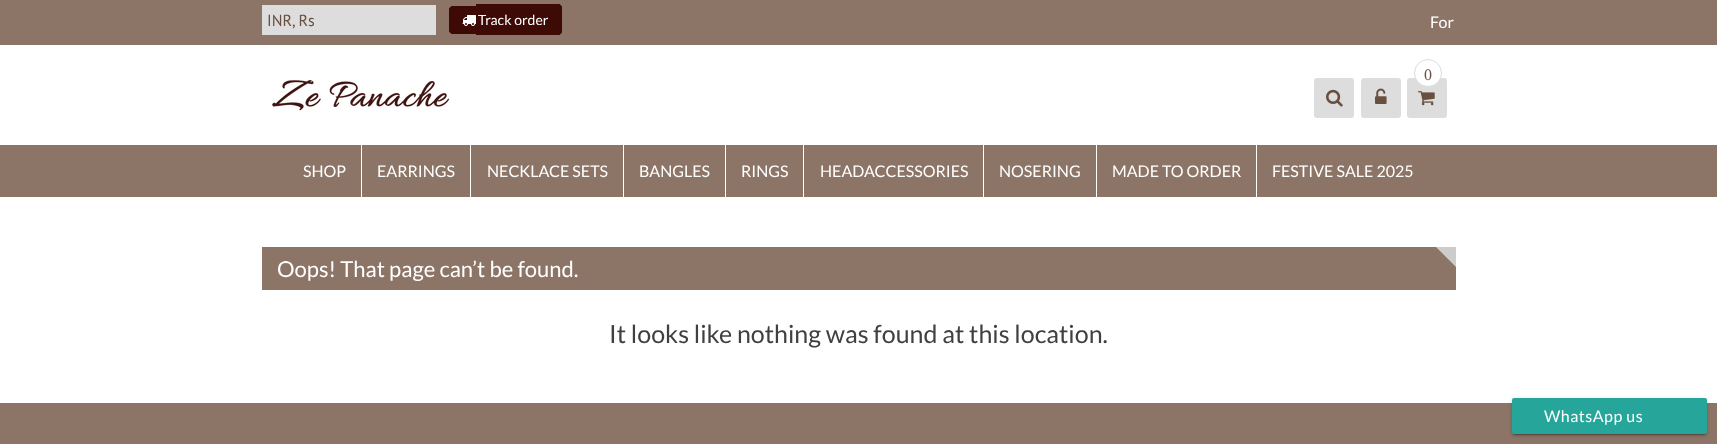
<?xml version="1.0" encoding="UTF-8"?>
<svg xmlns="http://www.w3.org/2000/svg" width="1717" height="444">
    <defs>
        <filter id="blur1" x="-50%" y="-200%" width="200%" height="500%"><feGaussianBlur stdDeviation="0.5"/></filter>
        <filter id="blur2" x="-50%" y="-200%" width="200%" height="500%"><feGaussianBlur stdDeviation="2.5"/></filter>
        <filter id="blur3" x="-50%" y="-200%" width="200%" height="500%"><feGaussianBlur stdDeviation="1"/></filter>
    </defs>
    <rect width="100%" height="100%" fill="#FFFFFF"/>
    <rect x="0" y="0" width="1717" height="45" fill="#8C7466"/>
    <rect x="262" y="5" width="174" height="30" fill="#DDDDDD"/>
    <text x="267" y="26" font-family="PT Sans" font-size="16" fill="#694F3F">INR, Rs</text>
    <path d="M 453 6 H 476 V 34 H 453 C 451 34 449 32 449 30 V 10 C 449 8 451 6 453 6 Z" fill="#3D0A06"/>
    <path d="M 453 6 H 476 V 34 H 453 C 451 34 449 32 449 30 V 10 C 449 8 451 6 453 6 Z M 453 7 H 476 V 33 H 453 C 451.5 33 450 31.5 450 30 V 10 C 450 8.5 451.5 7 453 7 Z" fill="#3D0A06" fill-rule="evenodd"/>
    <path d="M 476 4 H 558 C 560 4 562 6 562 8 V 31 C 562 33 560 35 558 35 H 476 Z" fill="#3D0A06"/>
    <path d="M 476 4 H 558 C 560 4 562 6 562 8 V 31 C 562 33 560 35 558 35 H 476 Z M 476 5 H 558 C 560 5 561 6 561 8 V 31 C 561 33 560 34 558 34 H 476 Z" fill="#3D0A06" fill-rule="evenodd"/>
    <image x="462" y="15" width="14" height="11" href="img_01.png"/>
    <text x="478" y="25" font-family="Lato" font-size="14" fill="#FFFFFF">Track order</text>
    <text x="1430" y="28" font-family="Lato" font-size="16" fill="#FFFFFF">For</text>
    <rect x="1407" y="78" width="40" height="40" rx="3" fill="#DDDDDD"/>
    <circle cx="1428" cy="73" r="13.5" fill="#FFFFFF" stroke="#DDDDDD"/>
    <text x="1424" y="80" font-family="Liberation Serif" font-size="16" fill="#694F3F">0</text>
    <image x="1418" y="91" width="17" height="15" href="img_02.png"/>
    <rect x="1314" y="78" width="40" height="40" rx="3" fill="#DDDDDD"/>
    <image x="1326" y="89" width="17" height="18" href="img_03.png"/>
    <rect x="1361" y="78" width="40" height="40" rx="3" fill="#DDDDDD"/>
    <image x="1375" y="88" width="12" height="16" href="img_04.png"/>
    <image x="272" y="80" width="178" height="31" href="img_05.png"/>
    <rect x="0" y="145" width="1717" height="52" fill="#8C7466"/>
    <text x="303" y="177" font-family="Lato" font-size="16" fill="#FFFFFF">SHOP</text>
    <rect x="361" y="145" width="1" height="52" fill="#FFFFFF"/>
    <text x="377" y="177" font-family="Lato" font-size="16" fill="#FFFFFF">EARRINGS</text>
    <rect x="470" y="145" width="1" height="52" fill="#FFFFFF"/>
    <text x="487" y="177" font-family="Lato" font-size="16" fill="#FFFFFF">NECKLACE SETS</text>
    <rect x="623" y="145" width="1" height="52" fill="#FFFFFF"/>
    <text x="639" y="177" font-family="Lato" font-size="16" fill="#FFFFFF">BANGLES</text>
    <rect x="725" y="145" width="1" height="52" fill="#FFFFFF"/>
    <text x="741" y="177" font-family="Lato" font-size="16" fill="#FFFFFF">RINGS</text>
    <rect x="803" y="145" width="1" height="52" fill="#FFFFFF"/>
    <text x="820" y="177" font-family="Lato" font-size="16" fill="#FFFFFF">HEADACCESSORIES</text>
    <rect x="983" y="145" width="1" height="52" fill="#FFFFFF"/>
    <text x="999" y="177" font-family="Lato" font-size="16" fill="#FFFFFF">NOSERING</text>
    <rect x="1096" y="145" width="1" height="52" fill="#FFFFFF"/>
    <text x="1112" y="177" font-family="Lato" font-size="16" fill="#FFFFFF">MADE TO ORDER</text>
    <rect x="1256" y="145" width="1" height="52" fill="#FFFFFF"/>
    <text x="1272" y="177" font-family="Lato" font-size="16" fill="#FFFFFF">FESTIVE SALE 2025</text>
    <rect x="262" y="247" width="1194" height="43" fill="#8C7466"/>
    <path d="M 1436 247 H 1456 V 267 Z" fill="#CCCCCC"/>
    <text x="277" y="277" font-family="Lato" font-size="22" fill="#FFFFFF">Oops! That page can’t be found.</text>
    <text x="609" y="343" font-family="Lato" font-size="25" fill="#404040">It looks like nothing was found at this location.</text>
    <rect x="0" y="403" width="1717" height="41" fill="#8C7466"/>
    <rect x="1514" y="403" width="191" height="32" fill="#000000" fill-opacity="0.2" filter="url(#blur1)"/>
    <rect x="1512" y="399" width="195" height="36" rx="2" fill="#000000" fill-opacity="0.12" filter="url(#blur2)"/>
    <rect x="1512" y="400" width="195" height="36" rx="2" fill="#000000" fill-opacity="0.14" filter="url(#blur3)"/>
    <rect x="1512" y="398" width="195" height="36" rx="2" fill="#26A69A"/>
    <text x="1544" y="422" font-family="Lato" font-size="16" letter-spacing="0.5" fill="#FFFFFF">WhatsApp us</text>
</svg>
